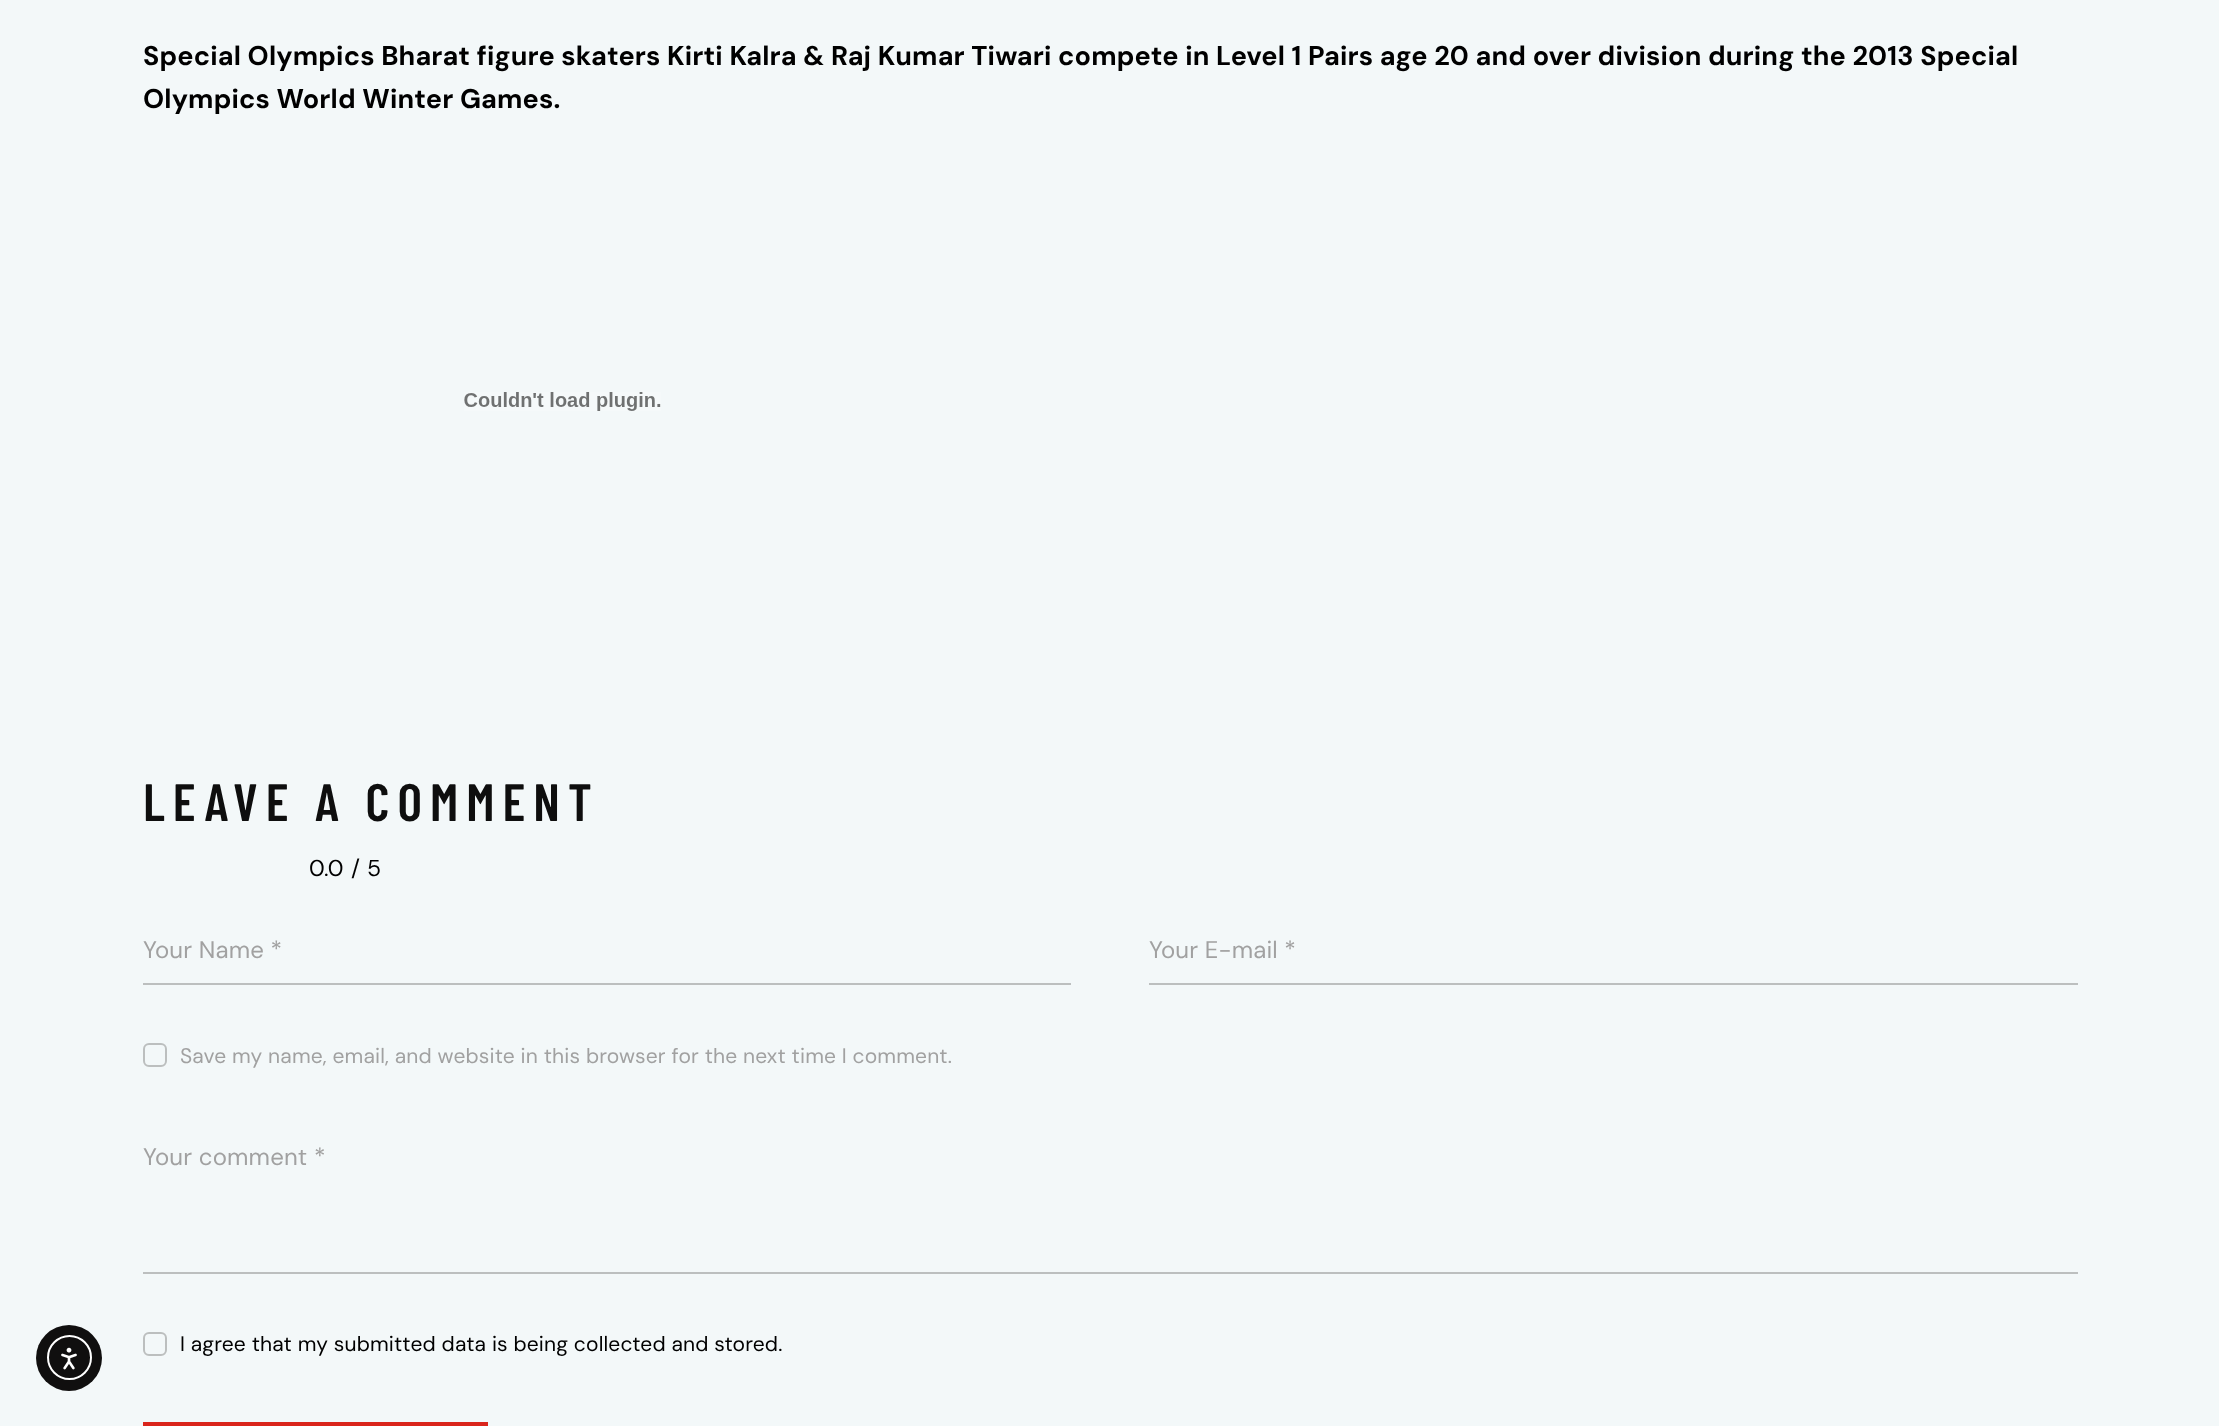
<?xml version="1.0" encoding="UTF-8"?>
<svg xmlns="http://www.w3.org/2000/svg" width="2219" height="1426">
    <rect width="100%" height="100%" fill="#F3F8F9"/>
    <circle cx="69" cy="1358" r="33" fill="#100F0F"/>
    <circle cx="69.5" cy="1357.5" r="21.5" fill="none" stroke="#FFFFFF" stroke-width="2"/>
    <image x="61" y="1347" width="16" height="23" href="img_01.png"/>
    <text font-family="DM Sans" font-size="27" font-weight="700" letter-spacing="0.15" fill="#000000">
        <tspan x="143" y="65">Special Olympics Bharat figure skaters Kirti Kalra &amp; Raj Kumar Tiwari compete in Level 1 Pairs age 20 and over division during the 2013 Special</tspan>
        <tspan x="143" y="108">Olympics World Winter Games.</tspan>
    </text>
    <image x="464" y="392" width="197" height="19" href="img_02.png"/>
    <text x="143" y="821" font-family="Barlow Condensed" font-size="52.5" font-weight="600" letter-spacing="8" fill="#0E0E0E">LEAVE A COMMENT</text>
    <text x="309" y="876" font-family="DM Sans" font-size="23" letter-spacing="0.15" fill="#000000">0.0</text>
    <text x="351" y="876" font-family="DM Sans" font-size="23" letter-spacing="0.15" fill="#000000">/</text>
    <text x="367" y="876" font-family="DM Sans" font-size="23" letter-spacing="0.15" fill="#000000">5</text>
    <rect x="143" y="983" width="928" height="2" fill="#BCBFBF"/>
    <text x="143" y="958" font-family="DM Sans" font-size="24" letter-spacing="0.15" fill="#A1A1A1">Your Name *</text>
    <rect x="1149" y="983" width="929" height="2" fill="#BCBFBF"/>
    <text x="1149" y="958" font-family="DM Sans" font-size="24" letter-spacing="0.15" fill="#A1A1A1">Your E-mail *</text>
    <rect x="144" y="1044" width="22" height="22" rx="5" fill="none" stroke="#BCBFBF" stroke-width="2"/>
    <text x="180" y="1063" font-family="DM Sans" font-size="21" letter-spacing="0.15" fill="#A1A1A1">Save my name, email, and website in this browser for the next time I comment.</text>
    <rect x="143" y="1272" width="1935" height="2" fill="#BCBFBF"/>
    <text x="143" y="1165" font-family="DM Sans" font-size="24" letter-spacing="0.15" fill="#A1A1A1">Your comment *</text>
    <rect x="144" y="1333" width="22" height="22" rx="5" fill="none" stroke="#BCBFBF" stroke-width="2"/>
    <text x="180" y="1351" font-family="DM Sans" font-size="21" letter-spacing="0.15" fill="#000000">I agree that my submitted data is being collected and stored.</text>
    <rect x="143" y="1422" width="345" height="4" fill="#DA251C"/>
</svg>
